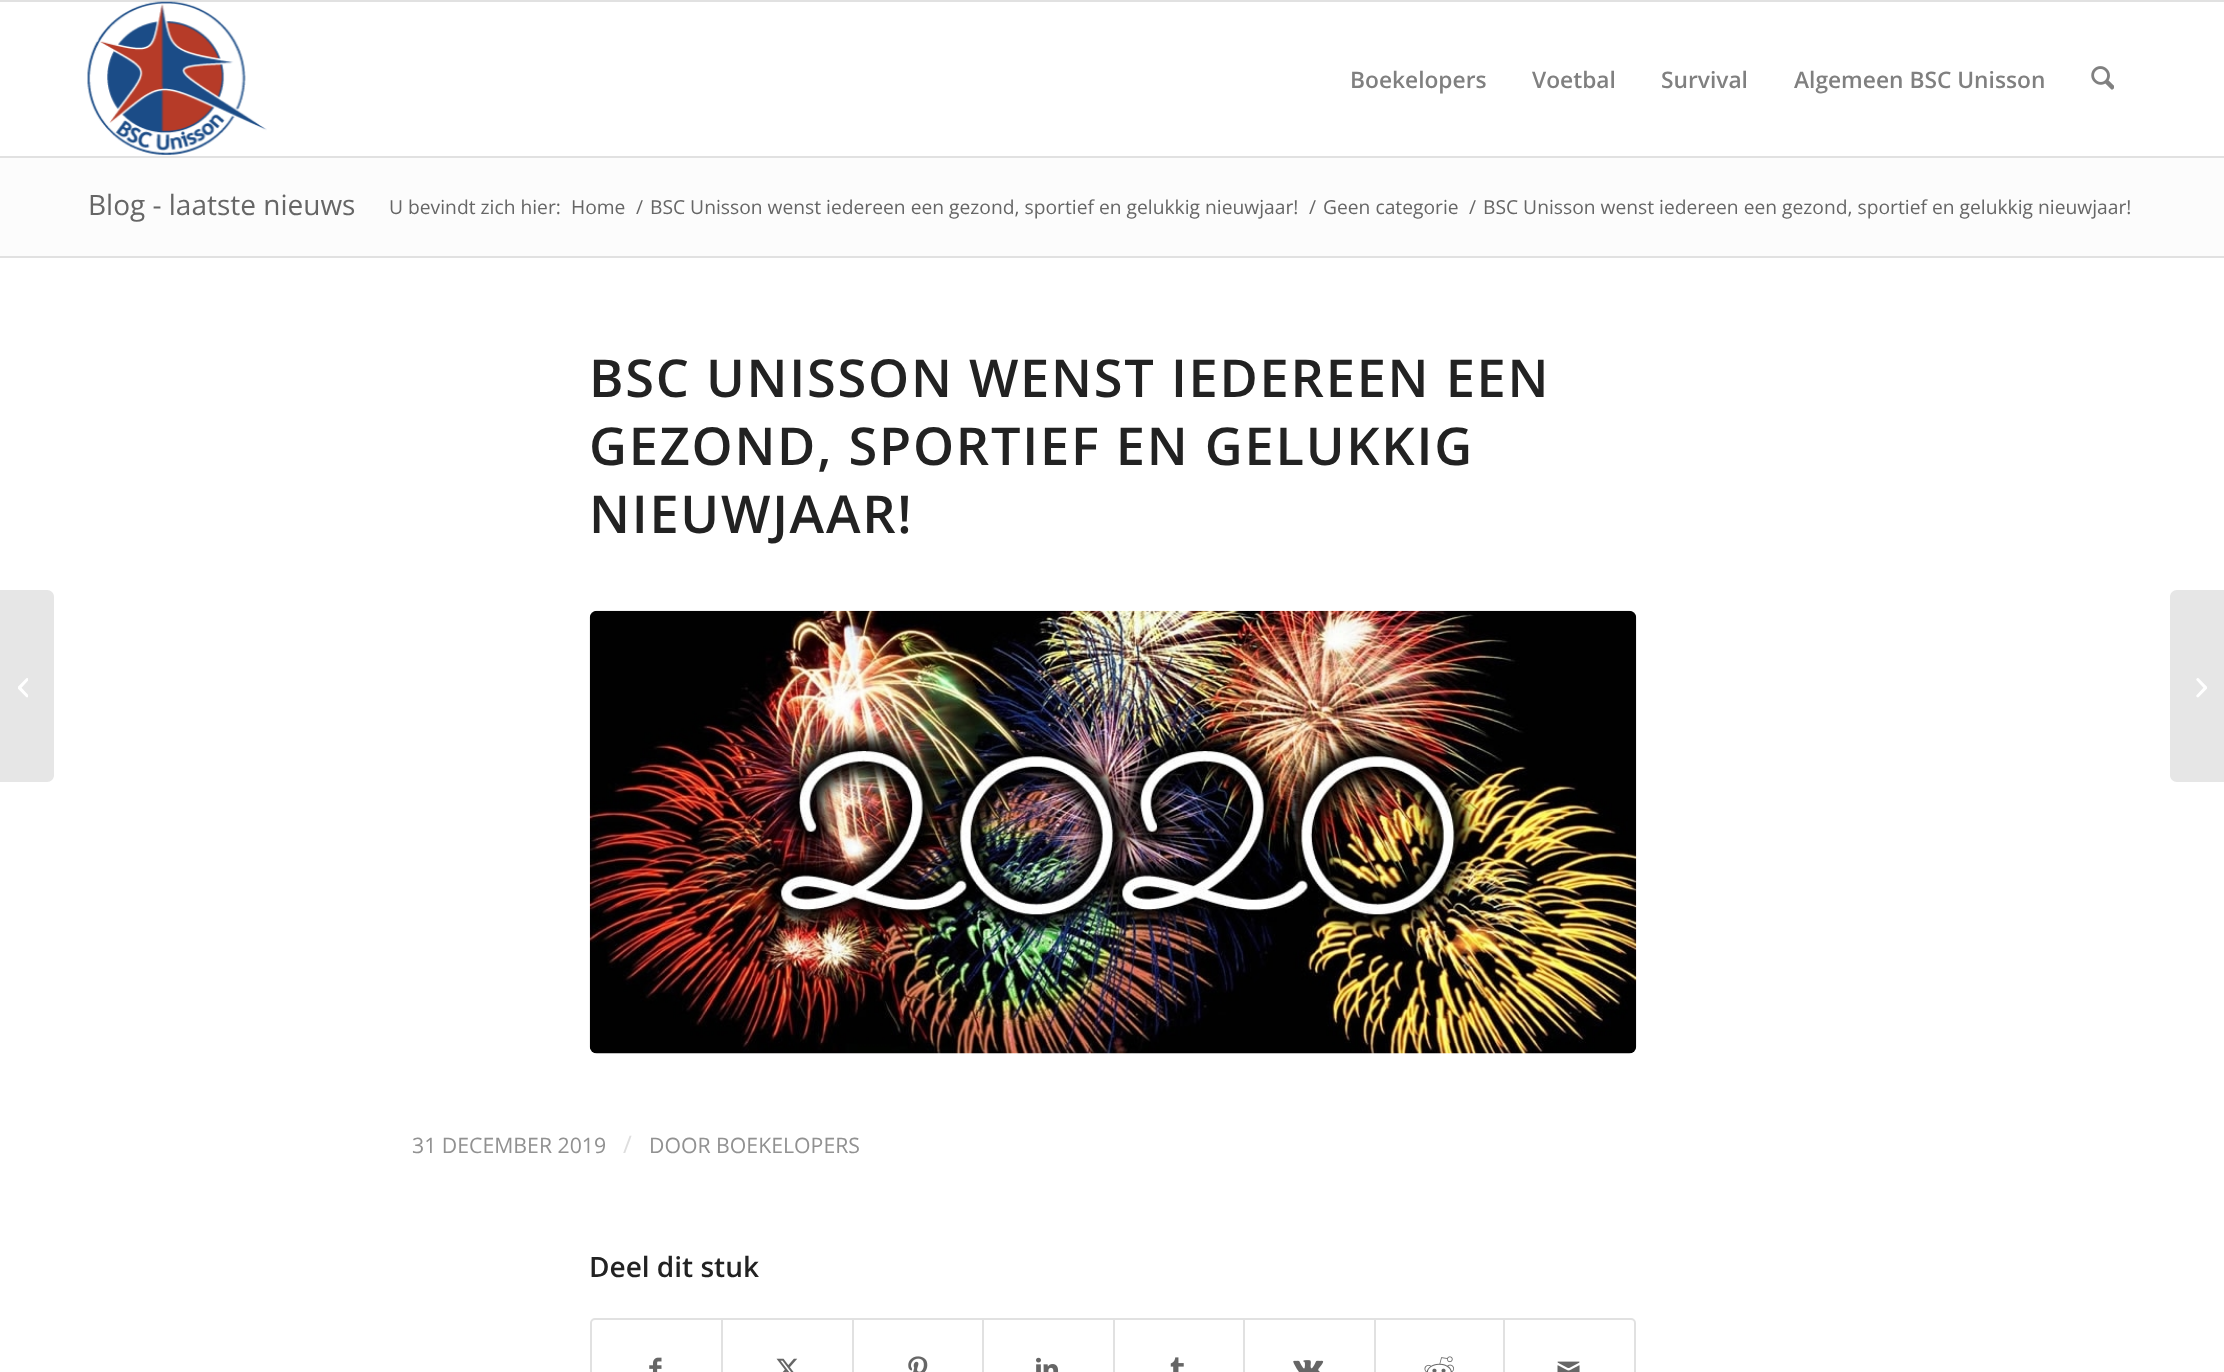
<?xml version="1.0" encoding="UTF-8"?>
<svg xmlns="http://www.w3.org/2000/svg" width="2224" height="1372">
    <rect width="100%" height="100%" fill="#FFFFFF"/>
    <rect x="0" y="0" width="2224" height="2" fill="#E1E1E1"/>
    <rect x="0" y="156" width="2224" height="2" fill="#E1E1E1"/>
    <image x="87" y="1" width="180" height="154" href="img_01.png"/>
    <text x="1350" y="88" font-family="Open Sans" font-size="22.75" font-weight="600" fill="#808080">Boekelopers</text>
    <text x="1532" y="88" font-family="Open Sans" font-size="22.75" font-weight="600" fill="#808080">Voetbal</text>
    <text x="1661" y="88" font-family="Open Sans" font-size="22.75" font-weight="600" fill="#808080">Survival</text>
    <text x="1794" y="88" font-family="Open Sans" font-size="22.75" font-weight="600" fill="#808080">Algemeen BSC Unisson</text>
    <image x="2091" y="66" width="23" height="24" href="img_02.png"/>
    <path d="M 0 590 H 47 C 51 590 54 593 54 597 V 775 C 54 779 51 782 47 782 H 0 Z" fill="#E6E6E6"/>
    <image x="18" y="678" width="10" height="20" href="img_03.png"/>
    <rect x="0" y="158" width="2224" height="98" fill="#FCFCFC"/>
    <text x="88" y="215" font-family="Open Sans" font-size="28" fill="#666666">Blog - laatste nieuws</text>
    <text x="389" y="214" font-family="Open Sans" font-size="19.25" fill="#666666">U bevindt zich hier:</text>
    <text x="571" y="214" font-family="Open Sans" font-size="19.25" fill="#666666">Home</text>
    <text x="636" y="214" font-family="Open Sans" font-size="19.25" fill="#666666">/</text>
    <text x="650" y="214" font-family="Open Sans" font-size="19.25" fill="#666666">BSC Unisson wenst iedereen een gezond, sportief en gelukkig nieuwjaar!</text>
    <text x="1309" y="214" font-family="Open Sans" font-size="19.25" fill="#666666">/</text>
    <text x="1323" y="214" font-family="Open Sans" font-size="19.25" fill="#666666">Geen categorie</text>
    <text x="1469" y="214" font-family="Open Sans" font-size="19.25" fill="#666666">/</text>
    <text x="1483" y="214" font-family="Open Sans" font-size="19.25" fill="#666666">BSC Unisson wenst iedereen een gezond, sportief en gelukkig nieuwjaar!</text>
    <rect x="0" y="256" width="2224" height="2" fill="#E1E1E1"/>
    <text font-family="Open Sans" font-size="52.3" font-weight="600" letter-spacing="1.75" fill="#222222">
        <tspan x="589" y="397">BSC UNISSON WENST IEDEREEN EEN</tspan>
        <tspan x="589" y="465">GEZOND, SPORTIEF EN GELUKKIG</tspan>
        <tspan x="589" y="533">NIEUWJAAR!</tspan>
    </text>
    <image x="589" y="610" width="1048" height="444" href="img_04.png"/>
    <text x="412" y="1153" font-family="Open Sans" font-size="21.25" fill="#919191">31 DECEMBER 2019</text>
    <text x="623" y="1153" font-family="Open Sans" font-size="24" fill="#DEDEDE">/</text>
    <text x="649" y="1153" font-family="Open Sans" font-size="21.25" fill="#919191">DOOR BOEKELOPERS</text>
    <text x="589" y="1277" font-family="Open Sans" font-size="28" font-weight="600" fill="#222222">Deel dit stuk</text>
    <rect x="591" y="1319" width="1044" height="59" rx="4" fill="none" stroke="#E1E1E1" stroke-width="2"/>
    <image x="649" y="1357" width="13" height="15" href="img_05.png"/>
    <rect x="721" y="1320" width="2" height="52" fill="#E1E1E1"/>
    <image x="776" y="1358" width="22" height="14" href="img_06.png"/>
    <rect x="852" y="1320" width="2" height="52" fill="#E1E1E1"/>
    <image x="908" y="1356" width="20" height="16" href="img_07.png"/>
    <rect x="982" y="1320" width="2" height="52" fill="#E1E1E1"/>
    <image x="1036" y="1357" width="23" height="15" href="img_08.png"/>
    <rect x="1113" y="1320" width="2" height="52" fill="#E1E1E1"/>
    <image x="1170" y="1357" width="14" height="15" href="img_09.png"/>
    <rect x="1243" y="1320" width="2" height="52" fill="#E1E1E1"/>
    <image x="1293" y="1360" width="31" height="12" href="img_10.png"/>
    <rect x="1374" y="1320" width="2" height="52" fill="#E1E1E1"/>
    <image x="1424" y="1356" width="30" height="16" href="img_11.png"/>
    <rect x="1503" y="1320" width="2" height="52" fill="#E1E1E1"/>
    <image x="1557" y="1361" width="23" height="11" href="img_12.png"/>
    <path d="M 2177 590 H 2224 V 782 H 2177 C 2173 782 2170 779 2170 775 V 597 C 2170 593 2173 590 2177 590 Z" fill="#E6E6E6"/>
    <image x="2196" y="678" width="11" height="20" href="img_13.png"/>
</svg>
